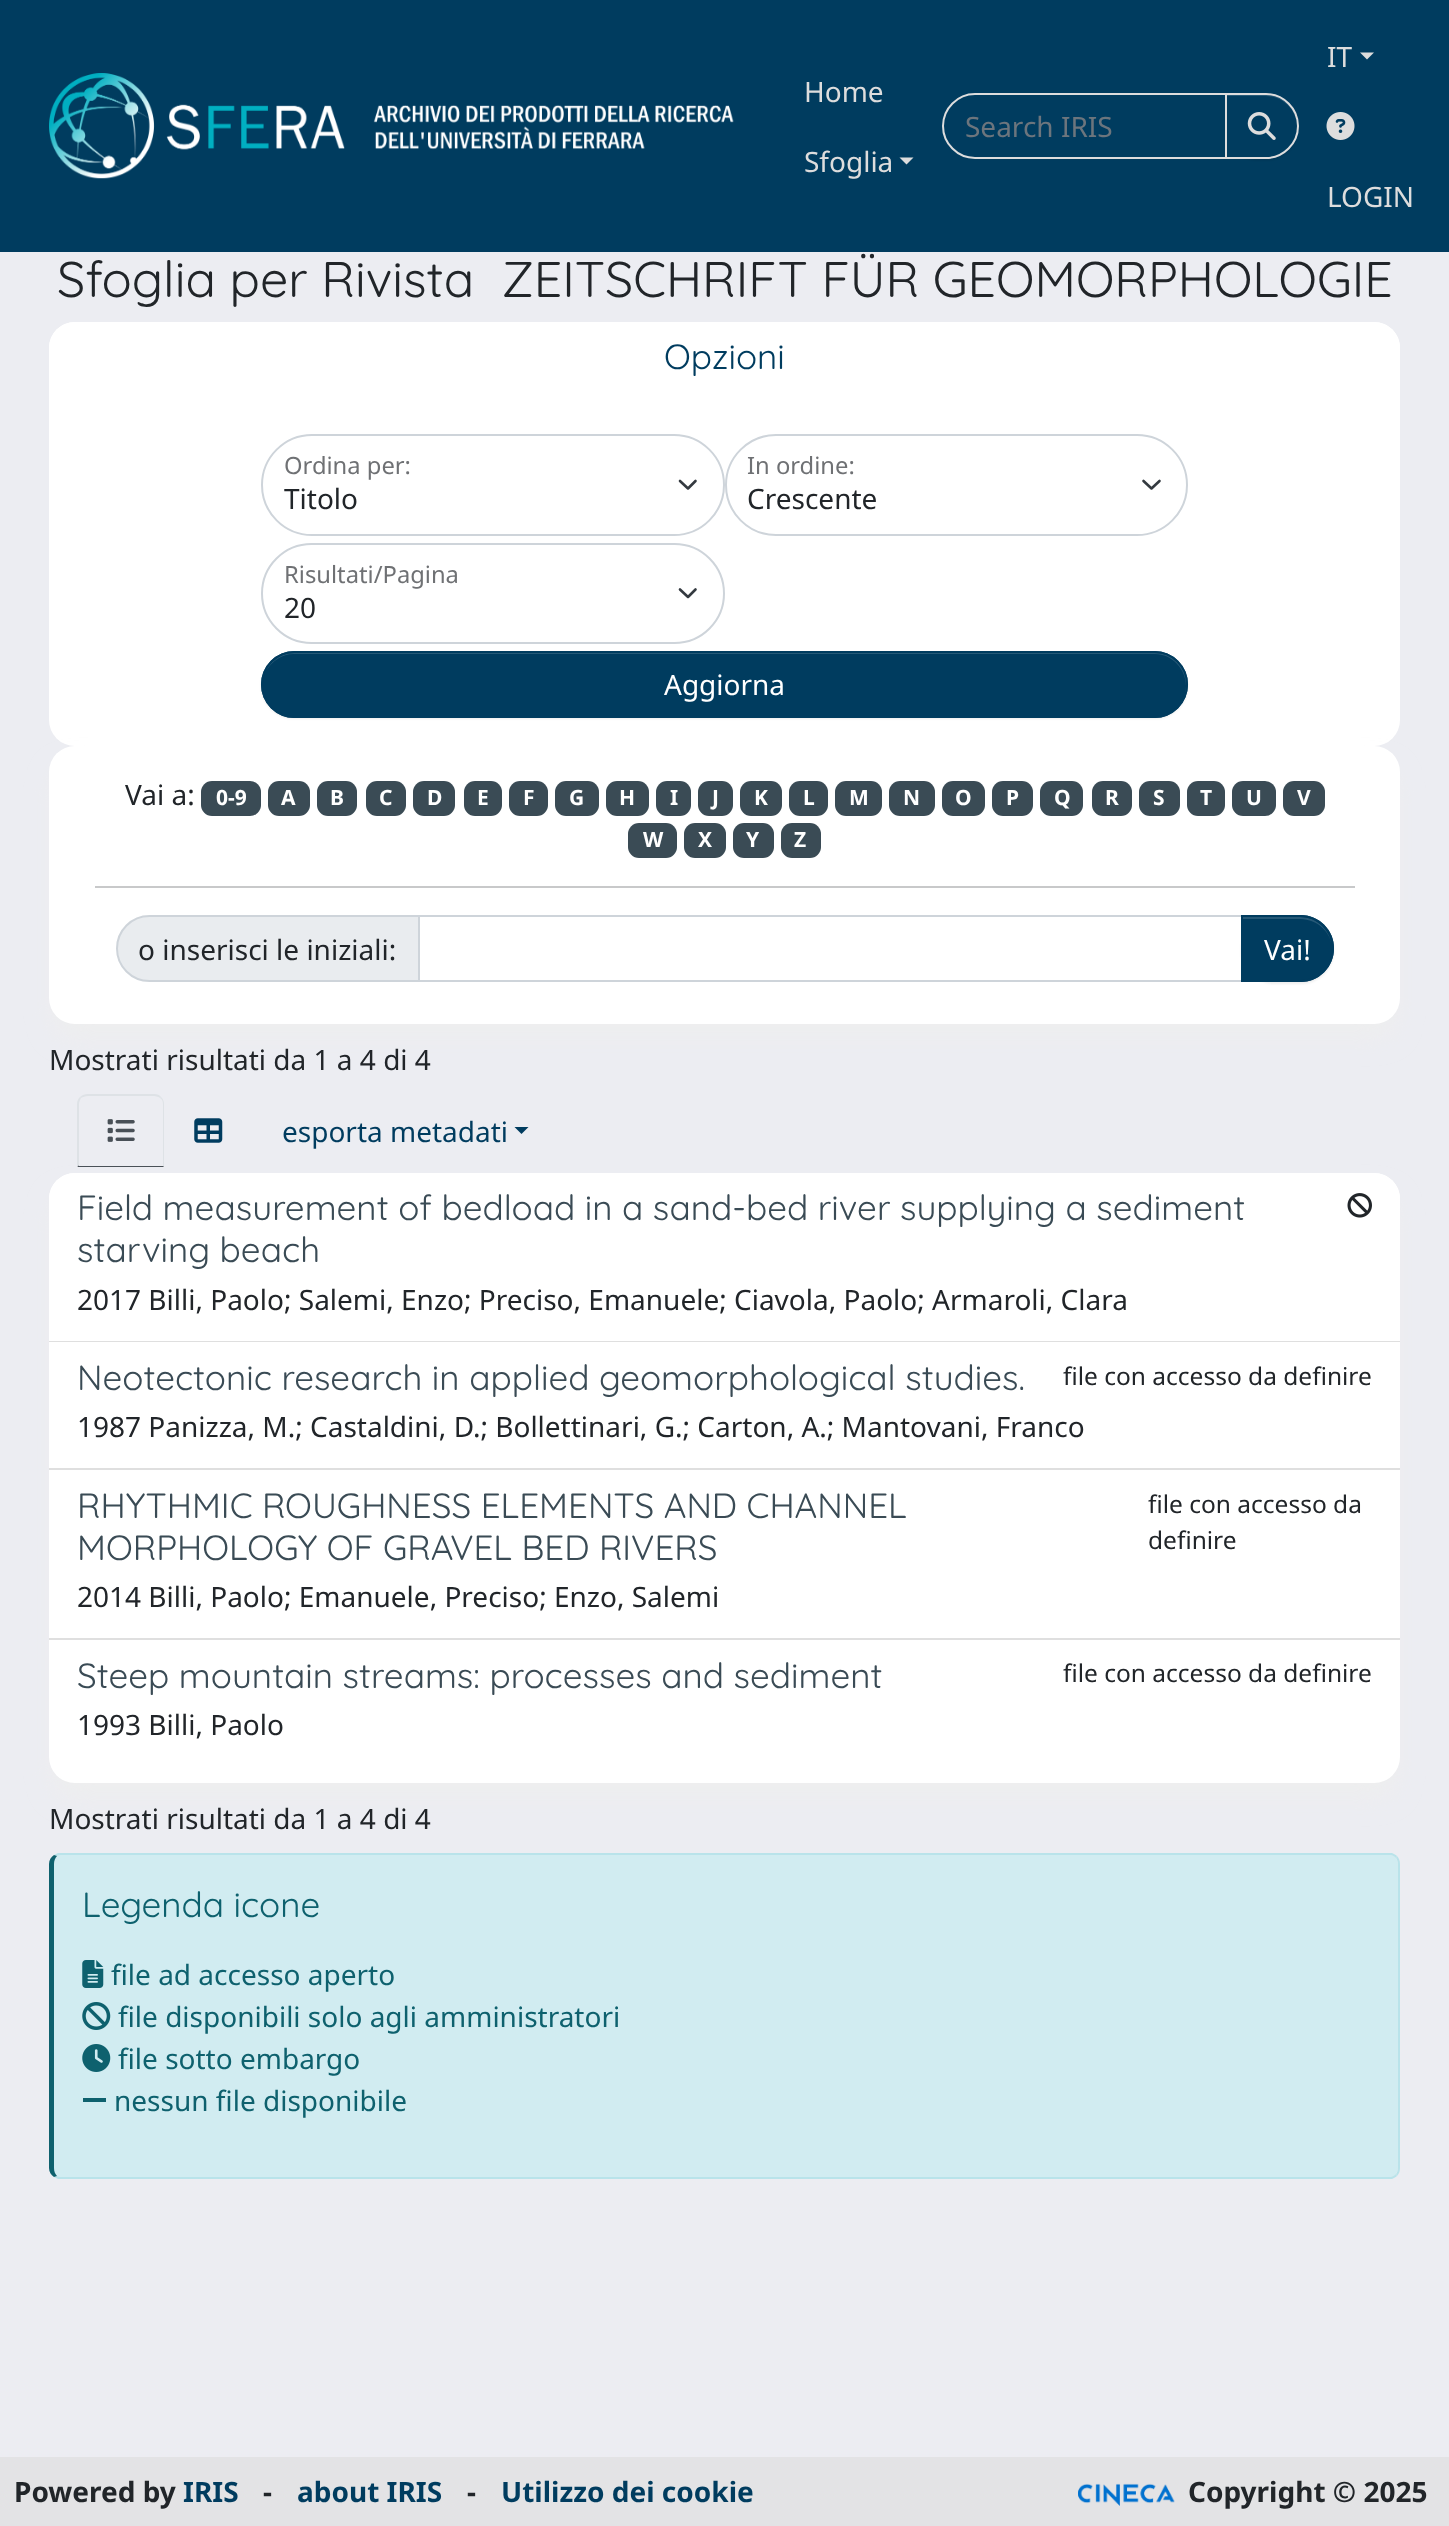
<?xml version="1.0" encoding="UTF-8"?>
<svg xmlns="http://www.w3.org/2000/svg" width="1449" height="2526">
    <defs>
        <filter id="blur1" x="-50%" y="-200%" width="200%" height="500%"><feGaussianBlur stdDeviation="1"/></filter>
        <filter id="blur2" x="-50%" y="-200%" width="200%" height="500%"><feGaussianBlur stdDeviation="13"/></filter>
    </defs>
    <rect width="100%" height="100%" fill="#ECEDF2"/>
    <rect x="0" y="0" width="1449" height="252" fill="#003C5F"/>
    <image x="49" y="73" width="685" height="106" href="img_01.png"/>
    <text x="804" y="102" font-family="Noto Sans" font-size="28" fill="#DDDDDD">Home</text>
    <text x="804" y="172" font-family="Noto Sans" font-size="28" fill="#DDDDDD">Sfoglia</text>
    <path d="M 899.5 157.5 H 913.5 L 906.5 164.5 Z" fill="#DDDDDD"/>
    <path d="M 975 94 H 1226 V 158 H 975 C 957.5 158 943 143.5 943 126 C 943 108.5 957.5 94 975 94 Z" fill="none" stroke="#DDDDDD" stroke-width="2"/>
    <text x="965" y="137" font-family="Noto Sans" font-size="28" fill="#6C757D">Search IRIS</text>
    <rect x="1225" y="95" width="74" height="66" rx="33" fill="#000000" fill-opacity="0.07" filter="url(#blur1)"/>
    <path d="M 1225 93 H 1266 C 1284 93 1299 108 1299 126 C 1299 144 1284 159 1266 159 H 1225 Z" fill="#003C5F"/>
    <path d="M 1227 96 H 1265 C 1283 96 1297 110 1297 127 V 126 C 1297 109 1283 95 1266 95 H 1227 Z" fill="#265977"/>
    <path d="M 1226 94 H 1266 C 1283.5 94 1298 108.5 1298 126 C 1298 143.5 1283.5 158 1266 158 H 1226 Z" fill="none" stroke="#DDDDDD" stroke-width="2"/>
    <image x="1247" y="112" width="29" height="28" href="img_02.png"/>
    <text x="1327" y="67" font-family="Noto Sans" font-size="28" fill="#DDDDDD">IT</text>
    <path d="M 1360 52.5 H 1374 L 1367 59.5 Z" fill="#DDDDDD"/>
    <image x="1326" y="112" width="29" height="28" href="img_03.png"/>
    <text x="1327" y="207" font-family="Noto Sans" font-size="28" fill="#DDDDDD">LOGIN</text>
    <text x="57" y="297" font-family="Quicksand" font-size="50.15" fill="#212529" xml:space="preserve">Sfoglia per Rivista  ZEITSCHRIFT FÜR GEOMORPHOLOGIE</text>
    <rect x="49" y="322" width="1351" height="424" rx="26" fill="#FFFFFF"/>
    <path d="M 75 322 H 1374 C 1388.5 322 1400 333.5 1400 348 V 406 H 49 V 348 C 49 333.5 60.5 322 75 322 Z" fill="#FFFFFF"/>
    <text x="664" y="369" font-family="Quicksand" font-size="35" fill="#003C5F">Opzioni</text>
    <path d="M 680 481 L 688 488.5 L 695.5 481" fill="none" stroke="#343A40" stroke-width="2.6" stroke-linecap="round" stroke-linejoin="round"/>
    <rect x="262" y="435" width="462" height="100" rx="50" fill="none" stroke="#CED4DA" stroke-width="2"/>
    <text x="284" y="474" font-family="Noto Sans" font-size="23.75" fill="#6F7174">Ordina per:</text>
    <text x="284" y="509" font-family="Noto Sans" font-size="28" fill="#212529">Titolo</text>
    <path d="M 1143.5 481 L 1151.5 488.5 L 1159.5 481" fill="none" stroke="#343A40" stroke-width="2.6" stroke-linecap="round" stroke-linejoin="round"/>
    <rect x="726" y="435" width="461" height="100" rx="50" fill="none" stroke="#CED4DA" stroke-width="2"/>
    <text x="747" y="474" font-family="Noto Sans" font-size="23.75" fill="#6F7174">In ordine:</text>
    <text x="747" y="509" font-family="Noto Sans" font-size="28" fill="#212529">Crescente</text>
    <path d="M 680 589.5 L 688 597 L 695.5 589.5" fill="none" stroke="#343A40" stroke-width="2.6" stroke-linecap="round" stroke-linejoin="round"/>
    <rect x="262" y="544" width="462" height="99" rx="49.5" fill="none" stroke="#CED4DA" stroke-width="2"/>
    <text x="284" y="583" font-family="Noto Sans" font-size="23.75" fill="#6F7174">Risultati/Pagina</text>
    <text x="284" y="618" font-family="Noto Sans" font-size="28" fill="#212529">20</text>
    <rect x="261" y="653" width="927" height="66" rx="33" fill="#000000" fill-opacity="0.07" filter="url(#blur1)"/>
    <rect x="261" y="651" width="927" height="67" rx="33.5" fill="#003C5F"/>
    <path d="M 294 654 H 1155 C 1172 654 1186 669 1186 686 C 1186 692 1184 698 1181 702 C 1185 697 1187 691 1187 684 C 1187 667 1173 653 1156 653 H 294 C 282 653 271 660 266 671 C 272 661 282 654 294 654 Z" fill="#265977"/>
    <rect x="262" y="652" width="925" height="65" rx="32.5" fill="none" stroke="#003C5F" stroke-width="2"/>
    <text x="664" y="695" font-family="Noto Sans" font-size="28" fill="#FFFFFF">Aggiorna</text>
    <rect x="54" y="768" width="1341" height="268" rx="21" fill="#EEEEEE" filter="url(#blur2)"/>
    <rect x="49" y="746" width="1351" height="278" rx="26" fill="#FFFFFF"/>
    <text x="125" y="805" font-family="Noto Sans" font-size="28" fill="#212529">Vai a:</text>
    <rect x="201" y="781" width="60" height="35" rx="11" fill="#3A4B55"/>
    <text x="216" y="805" font-family="Noto Sans" font-size="21" font-weight="700" fill="#FFFFFF">0-9</text>
    <rect x="268" y="781" width="42" height="35" rx="11" fill="#3A4B55"/>
    <text x="281" y="805" font-family="Noto Sans" font-size="21" font-weight="700" fill="#FFFFFF">A</text>
    <rect x="317" y="781" width="40" height="35" rx="11" fill="#3A4B55"/>
    <text x="330" y="805" font-family="Noto Sans" font-size="21" font-weight="700" fill="#FFFFFF">B</text>
    <rect x="366" y="781" width="40" height="35" rx="11" fill="#3A4B55"/>
    <text x="379" y="805" font-family="Noto Sans" font-size="21" font-weight="700" fill="#FFFFFF">C</text>
    <rect x="413" y="781" width="42" height="35" rx="11" fill="#3A4B55"/>
    <text x="427" y="805" font-family="Noto Sans" font-size="21" font-weight="700" fill="#FFFFFF">D</text>
    <rect x="464" y="781" width="38" height="35" rx="11" fill="#3A4B55"/>
    <text x="477" y="805" font-family="Noto Sans" font-size="21" font-weight="700" fill="#FFFFFF">E</text>
    <rect x="509" y="781" width="39" height="35" rx="11" fill="#3A4B55"/>
    <text x="523" y="805" font-family="Noto Sans" font-size="21" font-weight="700" fill="#FFFFFF">F</text>
    <rect x="555" y="781" width="44" height="35" rx="11" fill="#3A4B55"/>
    <text x="569" y="805" font-family="Noto Sans" font-size="21" font-weight="700" fill="#FFFFFF">G</text>
    <rect x="606" y="781" width="43" height="35" rx="11" fill="#3A4B55"/>
    <text x="619" y="805" font-family="Noto Sans" font-size="21" font-weight="700" fill="#FFFFFF">H</text>
    <rect x="656" y="781" width="35" height="35" rx="11" fill="#3A4B55"/>
    <text x="670" y="805" font-family="Noto Sans" font-size="21" font-weight="700" fill="#FFFFFF">I</text>
    <rect x="698" y="781" width="35" height="35" rx="11" fill="#3A4B55"/>
    <text x="712" y="805" font-family="Noto Sans" font-size="21" font-weight="700" fill="#FFFFFF">J</text>
    <rect x="740" y="781" width="42" height="35" rx="11" fill="#3A4B55"/>
    <text x="754" y="805" font-family="Noto Sans" font-size="21" font-weight="700" fill="#FFFFFF">K</text>
    <rect x="789" y="781" width="39" height="35" rx="11" fill="#3A4B55"/>
    <text x="803" y="805" font-family="Noto Sans" font-size="21" font-weight="700" fill="#FFFFFF">L</text>
    <rect x="835" y="781" width="47" height="35" rx="11" fill="#3A4B55"/>
    <text x="849" y="805" font-family="Noto Sans" font-size="21" font-weight="700" fill="#FFFFFF">M</text>
    <rect x="889" y="781" width="46" height="35" rx="11" fill="#3A4B55"/>
    <text x="903" y="805" font-family="Noto Sans" font-size="21" font-weight="700" fill="#FFFFFF">N</text>
    <rect x="942" y="781" width="43" height="35" rx="11" fill="#3A4B55"/>
    <text x="955" y="805" font-family="Noto Sans" font-size="21" font-weight="700" fill="#FFFFFF">O</text>
    <rect x="992" y="781" width="41" height="35" rx="11" fill="#3A4B55"/>
    <text x="1006" y="805" font-family="Noto Sans" font-size="21" font-weight="700" fill="#FFFFFF">P</text>
    <rect x="1040" y="781" width="43" height="35" rx="11" fill="#3A4B55"/>
    <text x="1054" y="805" font-family="Noto Sans" font-size="21" font-weight="700" fill="#FFFFFF">Q</text>
    <rect x="1092" y="781" width="40" height="35" rx="11" fill="#3A4B55"/>
    <text x="1105" y="805" font-family="Noto Sans" font-size="21" font-weight="700" fill="#FFFFFF">R</text>
    <rect x="1139" y="781" width="41" height="35" rx="11" fill="#3A4B55"/>
    <text x="1153" y="805" font-family="Noto Sans" font-size="21" font-weight="700" fill="#FFFFFF">S</text>
    <rect x="1187" y="781" width="38" height="35" rx="11" fill="#3A4B55"/>
    <text x="1200" y="805" font-family="Noto Sans" font-size="21" font-weight="700" fill="#FFFFFF">T</text>
    <rect x="1232" y="781" width="44" height="35" rx="11" fill="#3A4B55"/>
    <text x="1246" y="805" font-family="Noto Sans" font-size="21" font-weight="700" fill="#FFFFFF">U</text>
    <rect x="1283" y="781" width="42" height="35" rx="11" fill="#3A4B55"/>
    <text x="1297" y="805" font-family="Noto Sans" font-size="21" font-weight="700" fill="#FFFFFF">V</text>
    <rect x="628" y="823" width="49" height="35" rx="11" fill="#3A4B55"/>
    <text x="643" y="847" font-family="Noto Sans" font-size="21" font-weight="700" fill="#FFFFFF">W</text>
    <rect x="684" y="823" width="42" height="35" rx="11" fill="#3A4B55"/>
    <text x="698" y="847" font-family="Noto Sans" font-size="21" font-weight="700" fill="#FFFFFF">X</text>
    <rect x="733" y="823" width="41" height="35" rx="11" fill="#3A4B55"/>
    <text x="746" y="847" font-family="Noto Sans" font-size="21" font-weight="700" fill="#FFFFFF">Y</text>
    <rect x="781" y="823" width="40" height="35" rx="11" fill="#3A4B55"/>
    <text x="794" y="847" font-family="Noto Sans" font-size="21" font-weight="700" fill="#FFFFFF">Z</text>
    <rect x="95" y="886" width="1260" height="2" fill="#C8C9CA"/>
    <path d="M 149.5 916 H 419 V 981 H 149.5 C 131.5 981 117 966.5 117 948.5 C 117 930.5 131.5 916 149.5 916 Z" fill="#E9ECEF" stroke="#CED4DA" stroke-width="2"/>
    <text x="138" y="960" font-family="Noto Sans" font-size="28" fill="#212529">o inserisci le iniziali:</text>
    <rect x="419" y="916" width="823" height="65" fill="none" stroke="#CED4DA" stroke-width="2"/>
    <rect x="1241" y="917" width="93" height="67" rx="33.5" fill="#000000" fill-opacity="0.07" filter="url(#blur1)"/>
    <path d="M 1241 915 H 1300.5 C 1319 915 1334 930 1334 948.5 C 1334 967 1319 982 1300.5 982 H 1241 Z" fill="#003C5F"/>
    <path d="M 1243 917 V 919 H 1300 C 1318 919 1332 933 1332 949 C 1332 932 1318 917 1300 917 Z" fill="#265977"/>
    <path d="M 1242 916 H 1300.5 C 1318.5 916 1333 930.5 1333 948.5 C 1333 966.5 1318.5 981 1300.5 981 H 1242 Z" fill="none" stroke="#003C5F" stroke-width="2"/>
    <text x="1264" y="960" font-family="Noto Sans" font-size="28" fill="#FFFFFF">Vai!</text>
    <text x="49" y="1070" font-family="Noto Sans" font-size="28" fill="#212529">Mostrati risultati da 1 a 4 di 4</text>
    <path d="M 88 1094 C 85 1094 82 1095 80 1097 L 81 1098 C 83 1097 85 1096 88 1096 H 154 C 156 1096 159 1097 160 1098 L 161 1097 C 160 1095 157 1094 154 1094 Z" fill="#DEE2E6"/>
    <path d="M 164 1167 V 1104 C 164 1101 163 1099 161 1097 L 160 1098 C 162 1099 163 1101 163 1104 V 1166 Z" fill="#DEE2E6"/>
    <path d="M 164 1167 H 77 L 79 1165 V 1166 H 163 Z" fill="#495057"/>
    <path d="M 77 1104 V 1167 L 79 1165 V 1104 C 79 1102 80 1100 81 1098 L 80 1097 C 78 1099 77 1101 77 1104 Z" fill="#DEE2E6"/>
    <image x="107" y="1119" width="28" height="23" href="img_04.png"/>
    <image x="194" y="1118" width="29" height="25" href="img_05.png"/>
    <text x="282" y="1142" font-family="Noto Sans" font-size="28" fill="#003C5F">esporta metadati</text>
    <path d="M 514.5 1127 H 528.5 L 521.5 1134 Z" fill="#003C5F"/>
    <rect x="54" y="1195" width="1341" height="601" rx="21" fill="#EEEEEE" filter="url(#blur2)"/>
    <rect x="49" y="1173" width="1351" height="610" rx="26" fill="#FFFFFF"/>
    <path d="M 75 1173 H 1374 C 1388.5 1173 1400 1184.5 1400 1199 V 1342 H 49 V 1199 C 49 1184.5 60.5 1173 75 1173 Z" fill="#FFFFFF"/>
    <rect x="49" y="1341" width="1351" height="1" fill="#DFDFDF"/>
    <text font-family="Quicksand" font-size="35" fill="#3A4B55">
        <tspan x="77" y="1220">Field measurement of bedload in a sand-bed river supplying a sediment</tspan>
        <tspan x="77" y="1262">starving beach</tspan>
    </text>
    <image x="1347" y="1193" width="25" height="25" href="img_06.png"/>
    <text x="77" y="1310" font-family="Noto Sans" font-size="28" fill="#212529">2017 Billi, Paolo; Salemi, Enzo; Preciso, Emanuele; Ciavola, Paolo; Armaroli, Clara</text>
    <rect x="49" y="1468" width="1351" height="2" fill="#DFDFDF"/>
    <text x="77" y="1390" font-family="Quicksand" font-size="35" fill="#3A4B55">Neotectonic research in applied geomorphological studies.</text>
    <text x="1063" y="1385" font-family="Noto Sans" font-size="24.5" fill="#212529">file con accesso da definire</text>
    <text x="77" y="1437" font-family="Noto Sans" font-size="28" fill="#212529">1987 Panizza, M.; Castaldini, D.; Bollettinari, G.; Carton, A.; Mantovani, Franco</text>
    <rect x="49" y="1638" width="1351" height="2" fill="#DFDFDF"/>
    <text font-family="Quicksand" font-size="35" fill="#3A4B55">
        <tspan x="77" y="1518">RHYTHMIC ROUGHNESS ELEMENTS AND CHANNEL</tspan>
        <tspan x="77" y="1560">MORPHOLOGY OF GRAVEL BED RIVERS</tspan>
    </text>
    <text font-family="Noto Sans" font-size="24.5" fill="#212529">
        <tspan x="1148" y="1513">file con accesso da</tspan>
        <tspan x="1148" y="1549">definire</tspan>
    </text>
    <text x="77" y="1607" font-family="Noto Sans" font-size="28" fill="#212529">2014 Billi, Paolo; Emanuele, Preciso; Enzo, Salemi</text>
    <text x="77" y="1688" font-family="Quicksand" font-size="35" fill="#3A4B55">Steep mountain streams: processes and sediment</text>
    <text x="1063" y="1682" font-family="Noto Sans" font-size="24.5" fill="#212529">file con accesso da definire</text>
    <text x="77" y="1735" font-family="Noto Sans" font-size="28" fill="#212529">1993 Billi, Paolo</text>
    <text x="49" y="1829" font-family="Noto Sans" font-size="28" fill="#212529">Mostrati risultati da 1 a 4 di 4</text>
    <path d="M 60 1855 H 1390 C 1394 1855 1398 1859 1398 1864 V 2168 C 1398 2173 1394 2177 1390 2177 H 60 C 57 2177 54 2173 54 2168 V 1864 C 54 1859 57 1855 60 1855 Z" fill="#D1ECF1"/>
    <path d="M 60 1855 L 57 1856 L 54 1855 L 58 1853 H 1392 C 1394 1854 1396 1855 1397 1856 L 1396 1858 C 1394 1856 1392 1855 1390 1855 Z" fill="#B9E3EA"/>
    <path d="M 1400 2168 V 1864 C 1400 1861 1399 1858 1397 1856 L 1396 1858 C 1397 1859 1398 1862 1398 1864 V 2168 C 1398 2170 1397 2173 1396 2174 L 1397 2176 C 1399 2174 1400 2171 1400 2168 Z" fill="#B9E3EA"/>
    <path d="M 58 2179 L 54 2177 L 57 2176 L 60 2177 H 1390 C 1392 2177 1394 2176 1396 2174 L 1397 2176 C 1396 2177 1394 2178 1392 2179 Z" fill="#B9E3EA"/>
    <path d="M 49 1864 V 2168 C 49 2172 51 2175 54 2177 L 57 2176 C 55 2174 54 2171 54 2168 V 1864 C 54 1861 55 1858 57 1856 L 54 1855 C 51 1857 49 1860 49 1864 Z" fill="#0E616E"/>
    <text x="82" y="1917" font-family="Quicksand" font-size="35" fill="#0E616E">Legenda icone</text>
    <image x="82" y="1960" width="22" height="28" href="img_07.png"/>
    <text x="111" y="1985" font-family="Noto Sans" font-size="28" fill="#0E616E">file ad accesso aperto</text>
    <image x="82" y="2002" width="29" height="28" href="img_08.png"/>
    <text x="118" y="2027" font-family="Noto Sans" font-size="28" fill="#0E616E">file disponibili solo agli amministratori</text>
    <image x="82" y="2044" width="29" height="28" href="img_09.png"/>
    <text x="118" y="2069" font-family="Noto Sans" font-size="28" fill="#0E616E">file sotto embargo</text>
    <rect x="83" y="2098" width="23" height="4" fill="#0E616E"/>
    <text x="114" y="2111" font-family="Noto Sans" font-size="28" fill="#0E616E">nessun file disponibile</text>
    <rect x="0" y="2457" width="1449" height="69" fill="#E3E3E5"/>
    <text x="14" y="2502" font-family="Noto Sans" font-size="28" font-weight="700" fill="#212529">Powered by</text>
    <text x="183" y="2502" font-family="Noto Sans" font-size="28" font-weight="700" fill="#003C5F">IRIS</text>
    <text x="263" y="2502" font-family="Noto Sans" font-size="28" font-weight="700" fill="#212529">-</text>
    <text x="297" y="2502" font-family="Noto Sans" font-size="28" font-weight="700" fill="#003C5F">about IRIS</text>
    <text x="467" y="2502" font-family="Noto Sans" font-size="28" font-weight="700" fill="#212529">-</text>
    <text x="501" y="2502" font-family="Noto Sans" font-size="28" font-weight="700" fill="#003C5F">Utilizzo dei cookie</text>
    <image x="1078" y="2483" width="97" height="23" href="img_10.png"/>
    <text x="1188" y="2502" font-family="Noto Sans" font-size="28" font-weight="700" fill="#212529">Copyright © 2025</text>
</svg>
